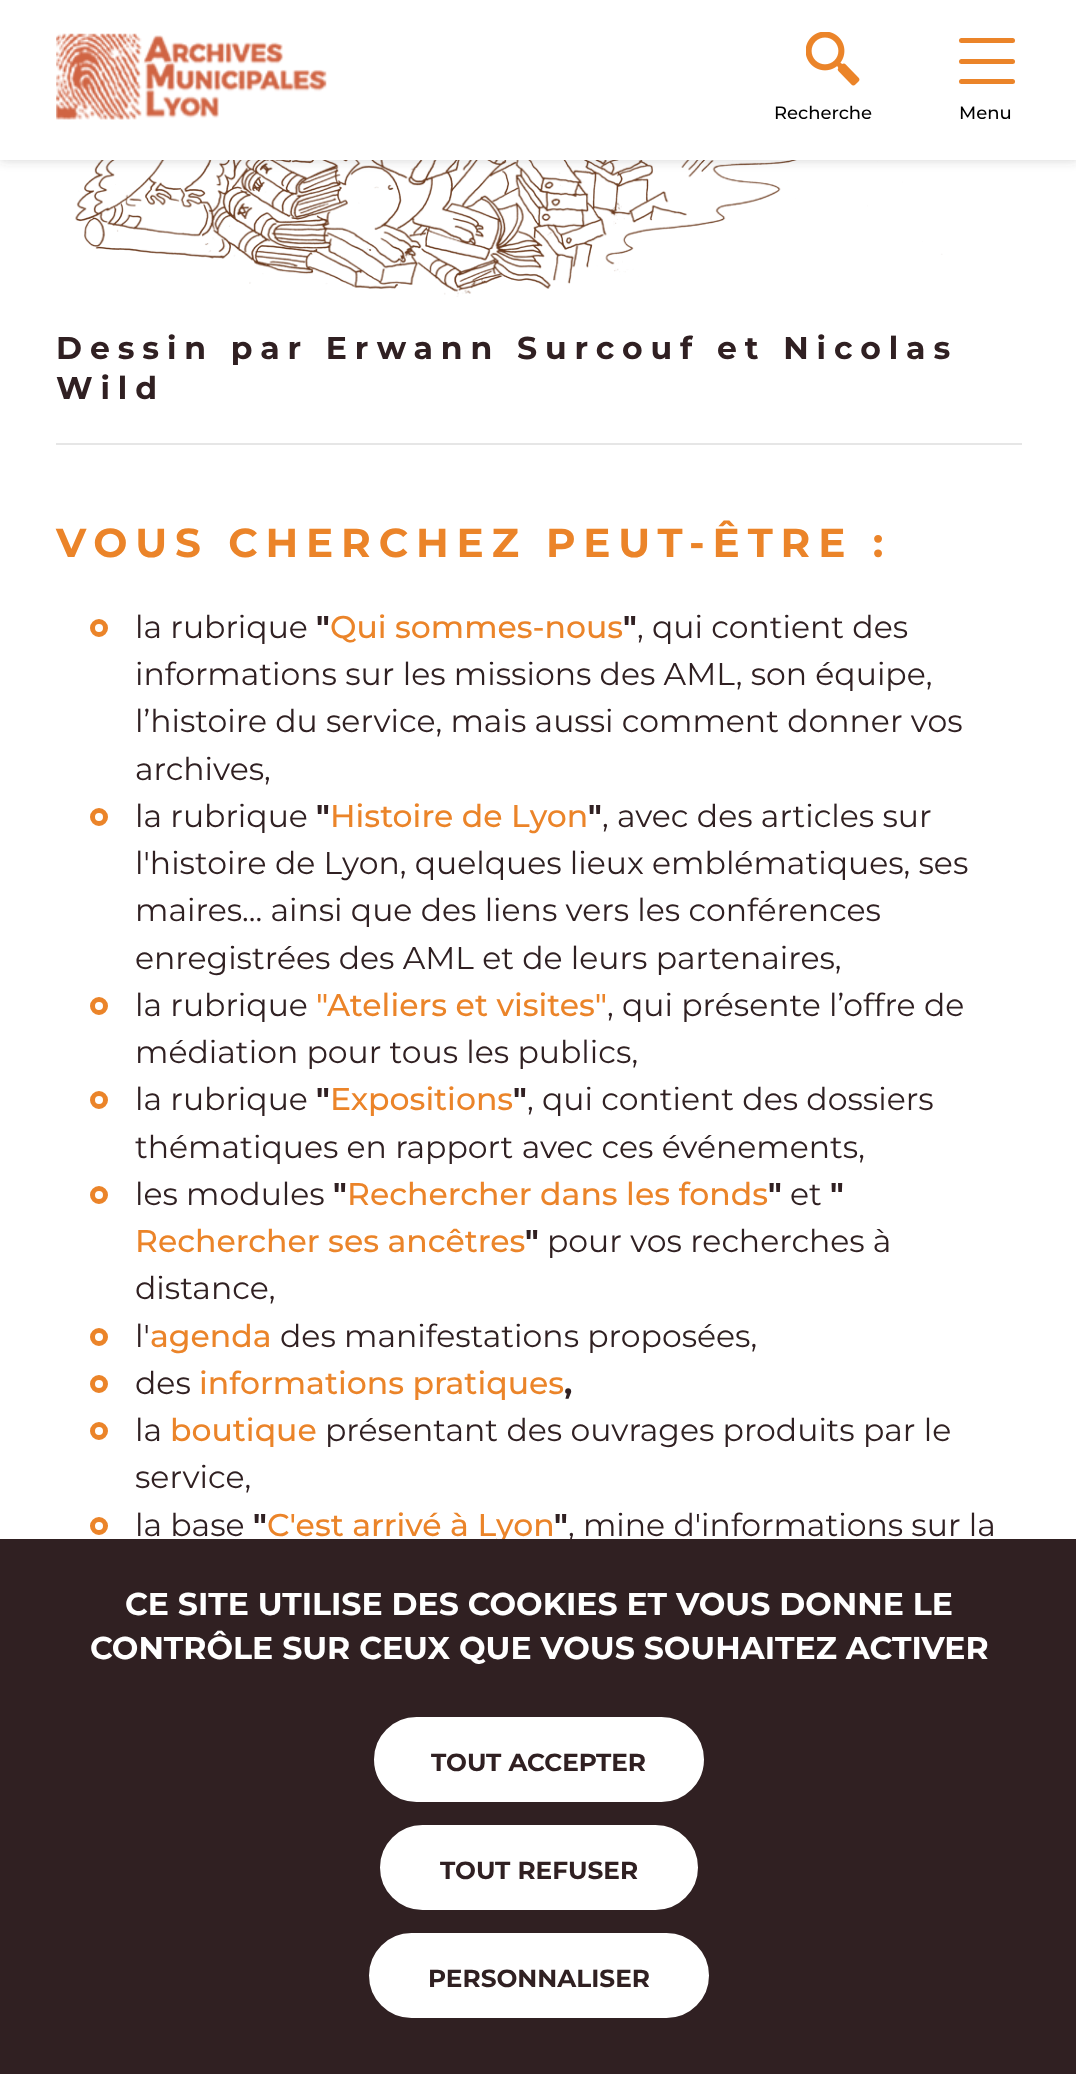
<?xml version="1.0" encoding="UTF-8"?>
<svg xmlns="http://www.w3.org/2000/svg" width="1076" height="2074">
    <defs>
        <filter id="blur1" x="-50%" y="-200%" width="200%" height="500%"><feGaussianBlur stdDeviation="5.5"/></filter>
    </defs>
    <rect width="100%" height="100%" fill="#FFFFFF"/>
    <image x="75" y="160" width="868" height="137" href="img_03.png"/>
    <rect x="0" y="0" width="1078" height="160" fill="#464646" fill-opacity="0.25" filter="url(#blur1)"/>
    <rect x="0" y="0" width="1076" height="160" fill="#FFFFFF"/>
    <image x="56" y="33" width="271" height="87" href="img_01.png"/>
    <image x="806" y="32" width="54" height="54" href="img_02.png"/>
    <text x="774" y="119" font-family="Montserrat" font-size="18" font-weight="500" fill="#000000">Recherche</text>
    <rect x="959" y="59" width="56" height="5" rx="2.5" fill="#EB8429"/>
    <rect x="959" y="38" width="56" height="5" rx="2.5" fill="#EB8429"/>
    <rect x="959" y="79" width="56" height="5" rx="2.5" fill="#EB8429"/>
    <text x="959" y="119" font-family="Montserrat" font-size="18" font-weight="500" fill="#000000">Menu</text>
    <text font-family="Montserrat" font-size="31.5" font-weight="700" letter-spacing="7.9" fill="#302022">
        <tspan x="56" y="359">Dessin par Erwann Surcouf et Nicolas</tspan>
        <tspan x="56" y="399">Wild</tspan>
    </text>
    <rect x="56" y="443" width="966" height="2" fill="#E6E6E6"/>
    <text x="56" y="557" font-family="Montserrat" font-size="40.5" font-weight="700" letter-spacing="7.9" fill="#EB8429">VOUS CHERCHEZ PEUT-ÊTRE :</text>
    <circle cx="99" cy="628" r="6.5" fill="none" stroke="#EB8429" stroke-width="5"/>
    <text x="135" y="638" font-family="Montserrat" font-size="31.5" fill="#302022">la rubrique</text>
    <text x="316" y="638" font-family="Montserrat" font-size="31.5" font-weight="700" fill="#302022">"</text>
    <text x="330" y="638" font-family="Montserrat" font-size="31.5" font-weight="500" fill="#EB8429">Qui sommes-nous</text>
    <text x="623" y="638" font-family="Montserrat" font-size="31.5" font-weight="700" fill="#302022">"</text>
    <text x="637" y="638" font-family="Montserrat" font-size="31.5" fill="#302022">, qui contient des</text>
    <text font-family="Montserrat" font-size="31.5" fill="#302022">
        <tspan x="135" y="685">informations sur les missions des AML, son équipe,</tspan>
        <tspan x="135" y="732">l’histoire du service, mais aussi comment donner vos</tspan>
        <tspan x="135" y="780">archives,</tspan>
    </text>
    <circle cx="99" cy="817" r="6.5" fill="none" stroke="#EB8429" stroke-width="5"/>
    <text x="135" y="827" font-family="Montserrat" font-size="31.5" fill="#302022">la rubrique</text>
    <text x="316" y="827" font-family="Montserrat" font-size="31.5" font-weight="700" fill="#302022">"</text>
    <text x="330" y="827" font-family="Montserrat" font-size="31.5" font-weight="500" fill="#EB8429">Histoire de Lyon</text>
    <text x="588" y="827" font-family="Montserrat" font-size="31.5" font-weight="700" fill="#302022">"</text>
    <text x="602" y="827" font-family="Montserrat" font-size="31.5" fill="#302022">, avec des articles sur</text>
    <text font-family="Montserrat" font-size="31.5" fill="#302022">
        <tspan x="135" y="874">l'histoire de Lyon, quelques lieux emblématiques, ses</tspan>
        <tspan x="135" y="921">maires... ainsi que des liens vers les conférences</tspan>
        <tspan x="135" y="969">enregistrées des AML et de leurs partenaires,</tspan>
    </text>
    <circle cx="99" cy="1006" r="6.5" fill="none" stroke="#EB8429" stroke-width="5"/>
    <text x="135" y="1016" font-family="Montserrat" font-size="31.5" fill="#302022">la rubrique</text>
    <text x="316" y="1016" font-family="Montserrat" font-size="31.5" font-weight="500" fill="#EB8429">"Ateliers et visites"</text>
    <text x="607" y="1016" font-family="Montserrat" font-size="31.5" fill="#302022">, qui présente l’offre de</text>
    <text x="135" y="1063" font-family="Montserrat" font-size="31.5" fill="#302022">médiation pour tous les publics,</text>
    <circle cx="99" cy="1100" r="6.5" fill="none" stroke="#EB8429" stroke-width="5"/>
    <text x="135" y="1110" font-family="Montserrat" font-size="31.5" fill="#302022">la rubrique</text>
    <text x="316" y="1110" font-family="Montserrat" font-size="31.5" font-weight="700" fill="#302022">"</text>
    <text x="330" y="1110" font-family="Montserrat" font-size="31.5" font-weight="500" fill="#EB8429">Expositions</text>
    <text x="513" y="1110" font-family="Montserrat" font-size="31.5" font-weight="700" fill="#302022">"</text>
    <text x="527" y="1110" font-family="Montserrat" font-size="31.5" fill="#302022">, qui contient des dossiers</text>
    <text font-family="Montserrat" font-size="31.5" fill="#302022">
        <tspan x="135" y="1158">thématiques en rapport avec ces événements,</tspan>
        <tspan x="135" y="1205">les modules</tspan>
    </text>
    <text x="333" y="1205" font-family="Montserrat" font-size="31.5" font-weight="700" fill="#302022">"</text>
    <text x="347" y="1205" font-family="Montserrat" font-size="31.5" font-weight="500" fill="#EB8429">Rechercher dans les fonds</text>
    <text x="768" y="1205" font-family="Montserrat" font-size="31.5" font-weight="700" fill="#302022">"</text>
    <text x="830" y="1205" font-family="Montserrat" font-size="31.5" font-weight="700" fill="#302022">"</text>
    <text x="135" y="1252" font-family="Montserrat" font-size="31.5" font-weight="500" fill="#EB8429">Rechercher ses ancêtres</text>
    <text x="525" y="1252" font-family="Montserrat" font-size="31.5" font-weight="700" fill="#302022">"</text>
    <circle cx="99" cy="1195" r="6.5" fill="none" stroke="#EB8429" stroke-width="5"/>
    <text x="790" y="1205" font-family="Montserrat" font-size="31.5" fill="#302022">et</text>
    <text x="547" y="1252" font-family="Montserrat" font-size="31.5" fill="#302022">pour vos recherches à</text>
    <text x="135" y="1299" font-family="Montserrat" font-size="31.5" fill="#302022">distance,</text>
    <circle cx="99" cy="1337" r="6.5" fill="none" stroke="#EB8429" stroke-width="5"/>
    <text x="135" y="1347" font-family="Montserrat" font-size="31.5" fill="#302022">l'</text>
    <text x="150" y="1347" font-family="Montserrat" font-size="31.5" font-weight="500" fill="#EB8429">agenda</text>
    <text x="280" y="1347" font-family="Montserrat" font-size="31.5" fill="#302022">des manifestations proposées,</text>
    <circle cx="99" cy="1384" r="6.5" fill="none" stroke="#EB8429" stroke-width="5"/>
    <text x="135" y="1394" font-family="Montserrat" font-size="31.5" fill="#302022">des</text>
    <text x="199" y="1394" font-family="Montserrat" font-size="31.5" font-weight="500" fill="#EB8429">informations pratiques</text>
    <text x="564" y="1394" font-family="Montserrat" font-size="31.5" font-weight="700" fill="#302022">,</text>
    <circle cx="99" cy="1431" r="6.5" fill="none" stroke="#EB8429" stroke-width="5"/>
    <text x="135" y="1441" font-family="Montserrat" font-size="31.5" fill="#302022">la</text>
    <text x="170" y="1441" font-family="Montserrat" font-size="31.5" font-weight="500" fill="#EB8429">boutique</text>
    <text x="325" y="1441" font-family="Montserrat" font-size="31.5" fill="#302022">présentant des ouvrages produits par le</text>
    <text x="135" y="1488" font-family="Montserrat" font-size="31.5" fill="#302022">service,</text>
    <circle cx="99" cy="1526" r="6.5" fill="none" stroke="#EB8429" stroke-width="5"/>
    <text x="135" y="1536" font-family="Montserrat" font-size="31.5" fill="#302022">la base</text>
    <text x="253" y="1536" font-family="Montserrat" font-size="31.5" font-weight="700" fill="#302022">"</text>
    <text x="267" y="1536" font-family="Montserrat" font-size="31.5" font-weight="500" fill="#EB8429">C'est arrivé à Lyon</text>
    <text x="554" y="1536" font-family="Montserrat" font-size="31.5" font-weight="700" fill="#302022">"</text>
    <text x="568" y="1536" font-family="Montserrat" font-size="31.5" fill="#302022">, mine d'informations sur la</text>
    <rect x="0" y="1539" width="1076" height="535" fill="#302022"/>
    <text x="125" y="1615" font-family="Montserrat" font-size="31.5" font-weight="700" fill="#FFFFFF">CE SITE UTILISE DES COOKIES ET VOUS DONNE LE</text>
    <text x="90" y="1659" font-family="Montserrat" font-size="31.5" font-weight="700" fill="#FFFFFF">CONTRÔLE SUR CEUX QUE VOUS SOUHAITEZ ACTIVER</text>
    <rect x="375" y="1718" width="328" height="83" rx="41.5" fill="#FFFFFF" stroke="#FFFFFF" stroke-width="2"/>
    <text x="431" y="1771" font-family="Montserrat" font-size="24.75" font-weight="700" fill="#302022">TOUT ACCEPTER</text>
    <rect x="381" y="1826" width="316" height="83" rx="41.5" fill="#FFFFFF" stroke="#FFFFFF" stroke-width="2"/>
    <text x="440" y="1879" font-family="Montserrat" font-size="24.75" font-weight="700" fill="#302022">TOUT REFUSER</text>
    <rect x="370" y="1934" width="338" height="83" rx="41.5" fill="#FFFFFF" stroke="#FFFFFF" stroke-width="2"/>
    <text x="428" y="1987" font-family="Montserrat" font-size="24.75" font-weight="700" fill="#302022">PERSONNALISER</text>
</svg>
